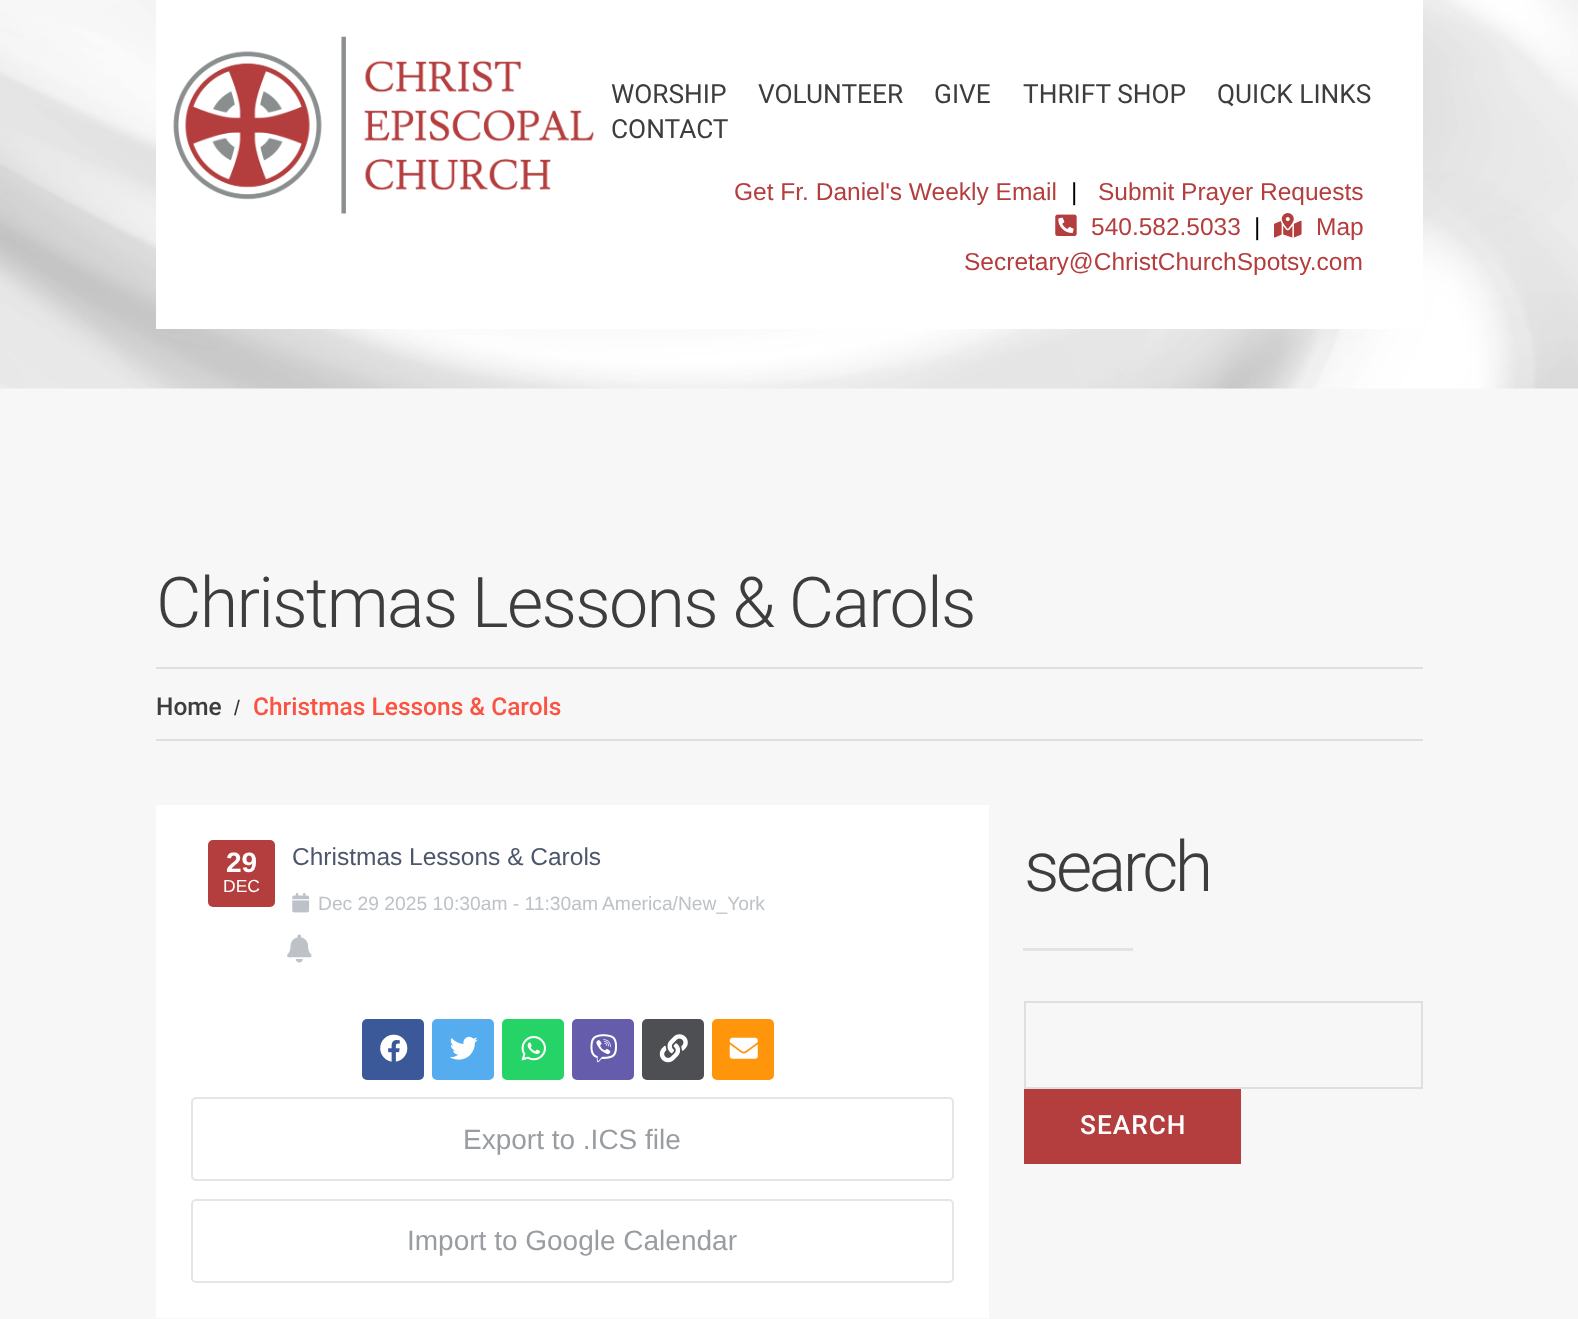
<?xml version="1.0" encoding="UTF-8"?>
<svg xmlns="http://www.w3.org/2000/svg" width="1578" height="1319">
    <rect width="100%" height="100%" fill="#F7F7F7"/>
    <image x="0" y="0" width="1578" height="389" href="img_01.png"/>
    <rect x="156" y="0" width="1267" height="329" fill="#FFFFFF"/>
    <image x="173" y="36" width="421" height="178" href="img_02.png"/>
    <text x="611" y="103" font-family="Roboto" font-size="26.25" fill="#3F3C3C">WORSHIP</text>
    <text x="758" y="103" font-family="Roboto" font-size="26.25" fill="#3F3C3C">VOLUNTEER</text>
    <text x="934" y="103" font-family="Roboto" font-size="26.25" fill="#3F3C3C">GIVE</text>
    <text x="1023" y="103" font-family="Roboto" font-size="26.25" fill="#3F3C3C">THRIFT SHOP</text>
    <text x="1217" y="103" font-family="Roboto" font-size="26.25" fill="#3F3C3C">QUICK LINKS</text>
    <text x="611" y="138" font-family="Roboto" font-size="26.25" fill="#3F3C3C">CONTACT</text>
    <text x="734" y="200" font-family="Liberation Sans" font-size="24.5" fill="#B43E3E">Get Fr. Daniel's Weekly Email</text>
    <text x="1071" y="200" font-family="Liberation Sans" font-size="24.5" fill="#000000">|</text>
    <text x="1098" y="200" font-family="Liberation Sans" font-size="24.5" fill="#B43E3E">Submit Prayer Requests</text>
    <image x="1055" y="214" width="22" height="22" href="img_03.png"/>
    <text x="1091" y="235" font-family="Liberation Sans" font-size="24.5" fill="#B43E3E">540.582.5033</text>
    <text x="1254" y="235" font-family="Liberation Sans" font-size="24.5" fill="#000000">|</text>
    <image x="1274" y="213" width="28" height="25" href="img_04.png"/>
    <text x="1316" y="235" font-family="Liberation Sans" font-size="24.5" fill="#B43E3E">Map</text>
    <text x="964" y="270" font-family="Liberation Sans" font-size="24.5" fill="#B43E3E">Secretary@ChristChurchSpotsy.com</text>
    <text x="156" y="627" font-family="Roboto" font-size="70" font-weight="300" letter-spacing="-1.75" fill="#3F3C3C">Christmas Lessons &amp; Carols</text>
    <rect x="156" y="667" width="1267" height="2" fill="#DFDFDF"/>
    <rect x="156" y="739" width="1267" height="2" fill="#DFDFDF"/>
    <text x="156" y="715" font-family="Roboto" font-size="24.5" font-weight="500" fill="#3F3C3C">Home</text>
    <text x="234" y="715" font-family="Liberation Sans" font-size="21" fill="#333333">/</text>
    <text x="253" y="715" font-family="Roboto" font-size="24.5" font-weight="500" fill="#FB5342">Christmas Lessons &amp; Carols</text>
    <rect x="156" y="805" width="833" height="513" fill="#FFFFFF"/>
    <rect x="208" y="840" width="67" height="67" rx="5" fill="#B43E3E"/>
    <text x="226" y="872" font-family="Liberation Sans" font-size="28" font-weight="700" fill="#FFFFFF">29</text>
    <text x="223" y="892" font-family="Liberation Sans" font-size="17.5" fill="#FFFFFF">DEC</text>
    <text x="292" y="865" font-family="Liberation Sans" font-size="24.5" fill="#4D576C">Christmas Lessons &amp; Carols</text>
    <image x="292" y="893" width="18" height="20" href="img_05.png"/>
    <text x="318" y="910" font-family="Liberation Sans" font-size="19.25" fill="#BDC1C8">Dec 29 2025 10:30am - 11:30am</text>
    <text x="602" y="910" font-family="Liberation Sans" font-size="19.25" fill="#BDC1C8">America/New_York</text>
    <image x="287" y="934" width="25" height="29" href="img_06.png"/>
    <rect x="362" y="1019" width="62" height="61" rx="5" fill="#3B5998"/>
    <image x="380" y="1034" width="28" height="28" href="img_07.png"/>
    <rect x="432" y="1019" width="62" height="61" rx="5" fill="#55ACEE"/>
    <image x="450" y="1036" width="28" height="24" href="img_08.png"/>
    <rect x="502" y="1019" width="62" height="61" rx="5" fill="#25D366"/>
    <image x="521" y="1036" width="25" height="25" href="img_09.png"/>
    <rect x="572" y="1019" width="62" height="61" rx="5" fill="#665CAC"/>
    <image x="590" y="1034" width="27" height="29" href="img_10.png"/>
    <rect x="642" y="1019" width="62" height="61" rx="5" fill="#4D4F53"/>
    <image x="659" y="1034" width="29" height="29" href="img_11.png"/>
    <rect x="712" y="1019" width="62" height="61" rx="5" fill="#FF950B"/>
    <image x="729" y="1037" width="29" height="22" href="img_12.png"/>
    <rect x="192" y="1098" width="761" height="82" rx="4" fill="none" stroke="#E5E5E5" stroke-width="2"/>
    <text x="463" y="1149" font-family="Liberation Sans" font-size="28" fill="#999DA2">Export to .ICS file</text>
    <rect x="192" y="1200" width="761" height="82" rx="4" fill="none" stroke="#E5E5E5" stroke-width="2"/>
    <text x="407" y="1250" font-family="Liberation Sans" font-size="28" fill="#999DA2">Import to Google Calendar</text>
    <rect x="1023" y="948" width="110" height="3" fill="#E3E3E3"/>
    <text x="1024" y="891" font-family="Roboto" font-size="70" font-weight="300" letter-spacing="-3.5" fill="#3F3C3C">search</text>
    <rect x="1025" y="1002" width="397" height="86" fill="none" stroke="#DFDFDF" stroke-width="2"/>
    <rect x="1024" y="1089" width="217" height="75" fill="#B43E3E"/>
    <text x="1080" y="1134" font-family="Roboto" font-size="26.25" font-weight="500" letter-spacing="1" fill="#FFFFFF">SEARCH</text>
</svg>
